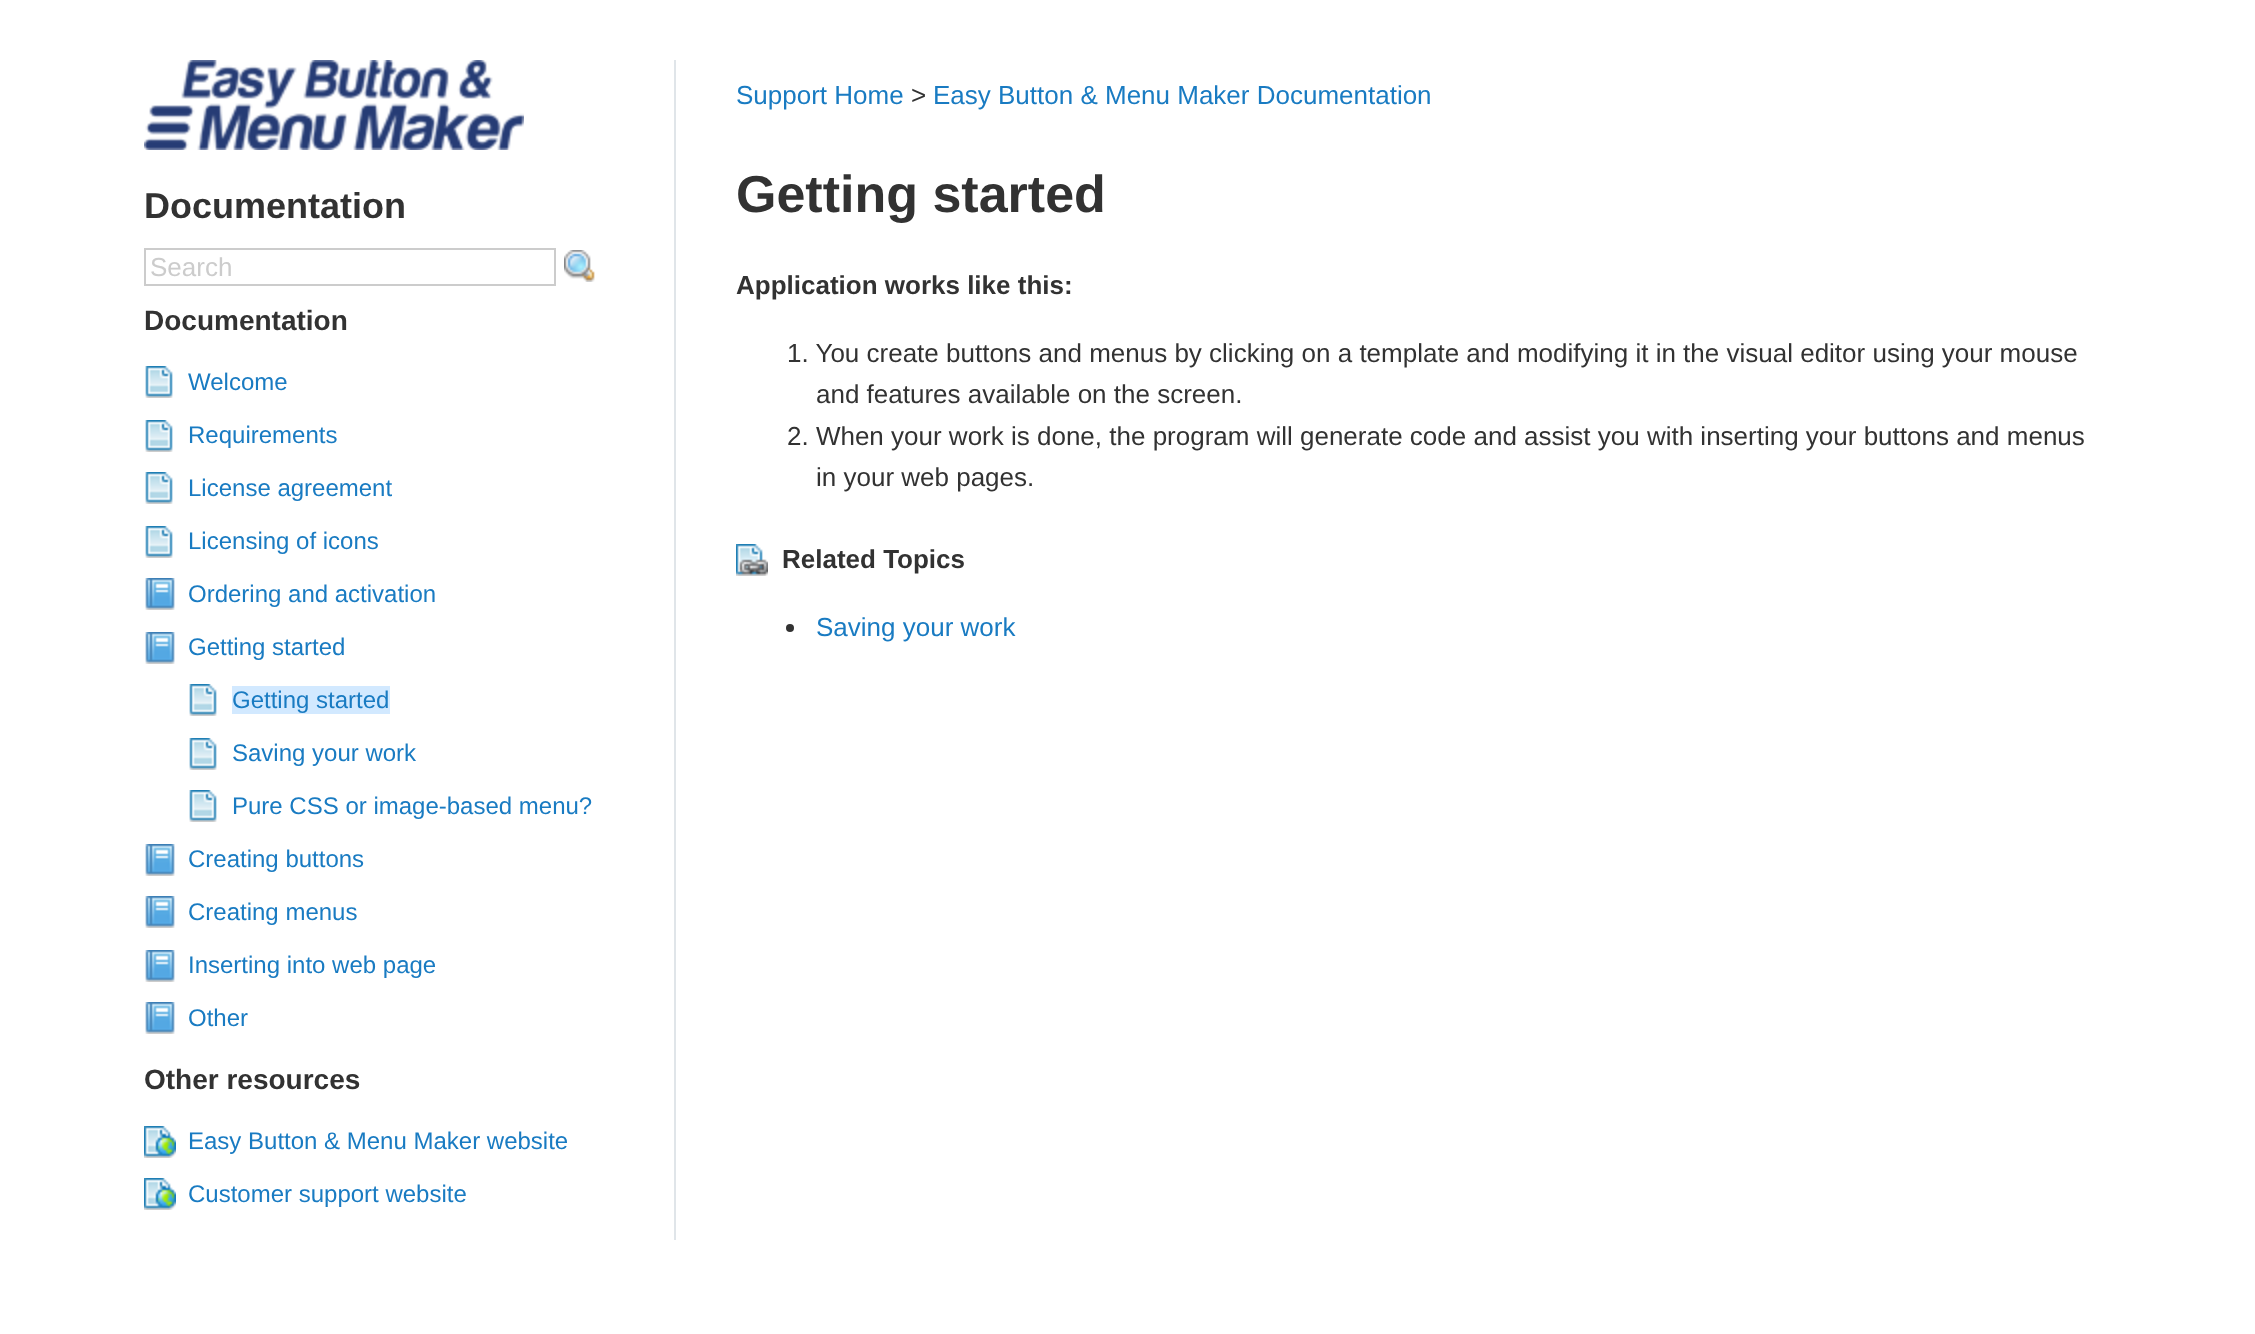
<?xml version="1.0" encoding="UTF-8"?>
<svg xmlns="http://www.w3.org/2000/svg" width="2255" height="1334">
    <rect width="100%" height="100%" fill="#FFFFFF"/>
    <rect x="674" y="60" width="2" height="1180" fill="#E0E5E9"/>
    <image x="144" y="60" width="380" height="90" href="img_01.png"/>
    <text x="144" y="218" font-family="Liberation Sans" font-size="36" font-weight="700" fill="#323232">Documentation</text>
    <rect x="145" y="249" width="410" height="36" fill="none" stroke="#CCCCCC" stroke-width="2"/>
    <text x="150" y="276" font-family="Liberation Sans" font-size="26" fill="#CCCCCC">Search</text>
    <image x="564" y="250" width="31" height="32" href="img_02.png"/>
    <text x="144" y="330" font-family="Liberation Sans" font-size="28" font-weight="700" fill="#323232">Documentation</text>
    <image x="145" y="366" width="28" height="32" href="img_03.png"/>
    <text x="188" y="390" font-family="Liberation Sans" font-size="24" fill="#197BC2">Welcome</text>
    <image x="145" y="420" width="28" height="32" href="img_03.png"/>
    <text x="188" y="443" font-family="Liberation Sans" font-size="24" fill="#197BC2">Requirements</text>
    <image x="145" y="472" width="28" height="32" href="img_03.png"/>
    <text x="188" y="496" font-family="Liberation Sans" font-size="24" fill="#197BC2">License agreement</text>
    <image x="145" y="526" width="28" height="32" href="img_03.png"/>
    <text x="188" y="549" font-family="Liberation Sans" font-size="24" fill="#197BC2">Licensing of icons</text>
    <image x="145" y="578" width="30" height="32" href="img_04.png"/>
    <text x="188" y="602" font-family="Liberation Sans" font-size="24" fill="#197BC2">Ordering and activation</text>
    <image x="145" y="632" width="30" height="32" href="img_04.png"/>
    <text x="188" y="655" font-family="Liberation Sans" font-size="24" fill="#197BC2">Getting started</text>
    <image x="189" y="684" width="28" height="32" href="img_03.png"/>
    <rect x="232" y="686" width="158" height="28" fill="#D2E9FF"/>
    <text x="232" y="708" font-family="Liberation Sans" font-size="24" fill="#197BC2">Getting started</text>
    <image x="189" y="738" width="28" height="32" href="img_03.png"/>
    <text x="232" y="761" font-family="Liberation Sans" font-size="24" fill="#197BC2">Saving your work</text>
    <image x="189" y="790" width="28" height="32" href="img_03.png"/>
    <text x="232" y="814" font-family="Liberation Sans" font-size="24" fill="#197BC2">Pure CSS or image-based menu?</text>
    <image x="145" y="844" width="30" height="32" href="img_04.png"/>
    <text x="188" y="867" font-family="Liberation Sans" font-size="24" fill="#197BC2">Creating buttons</text>
    <image x="145" y="896" width="30" height="32" href="img_04.png"/>
    <text x="188" y="920" font-family="Liberation Sans" font-size="24" fill="#197BC2">Creating menus</text>
    <image x="145" y="950" width="30" height="32" href="img_04.png"/>
    <text x="188" y="973" font-family="Liberation Sans" font-size="24" fill="#197BC2">Inserting into web page</text>
    <image x="145" y="1002" width="30" height="32" href="img_04.png"/>
    <text x="188" y="1026" font-family="Liberation Sans" font-size="24" fill="#197BC2">Other</text>
    <text x="144" y="1089" font-family="Liberation Sans" font-size="28" font-weight="700" fill="#323232">Other resources</text>
    <image x="144" y="1126" width="32" height="32" href="img_05.png"/>
    <text x="188" y="1149" font-family="Liberation Sans" font-size="24" fill="#197BC2">Easy Button &amp; Menu Maker website</text>
    <image x="144" y="1178" width="32" height="32" href="img_05.png"/>
    <text x="188" y="1202" font-family="Liberation Sans" font-size="24" fill="#197BC2">Customer support website</text>
    <text x="736" y="104" font-family="Liberation Sans" font-size="26" fill="#197BC2">Support Home</text>
    <text x="911" y="104" font-family="Liberation Sans" font-size="26" fill="#323232">&gt;</text>
    <text x="933" y="104" font-family="Liberation Sans" font-size="26" fill="#197BC2">Easy Button &amp; Menu Maker Documentation</text>
    <text x="736" y="212" font-family="Liberation Sans" font-size="52" font-weight="700" fill="#323232">Getting started</text>
    <text x="736" y="294" font-family="Liberation Sans" font-size="26" font-weight="700" fill="#323232">Application works like this:</text>
    <text x="787" y="362" font-family="Liberation Sans" font-size="26" fill="#323232">1. You create buttons and menus by clicking on a template and modifying it in the visual editor using your mouse</text>
    <text x="816" y="403" font-family="Liberation Sans" font-size="26" fill="#323232">and features available on the screen.</text>
    <text x="787" y="445" font-family="Liberation Sans" font-size="26" fill="#323232">2. When your work is done, the program will generate code and assist you with inserting your buttons and menus</text>
    <text x="816" y="486" font-family="Liberation Sans" font-size="26" fill="#323232">in your web pages.</text>
    <image x="736" y="544" width="32" height="32" href="img_06.png"/>
    <text x="782" y="568" font-family="Liberation Sans" font-size="26" font-weight="700" fill="#323232">Related Topics</text>
    <circle cx="790" cy="628" r="4" fill="#323232"/>
    <text x="816" y="636" font-family="Liberation Sans" font-size="26" fill="#197BC2">Saving your work</text>
</svg>
